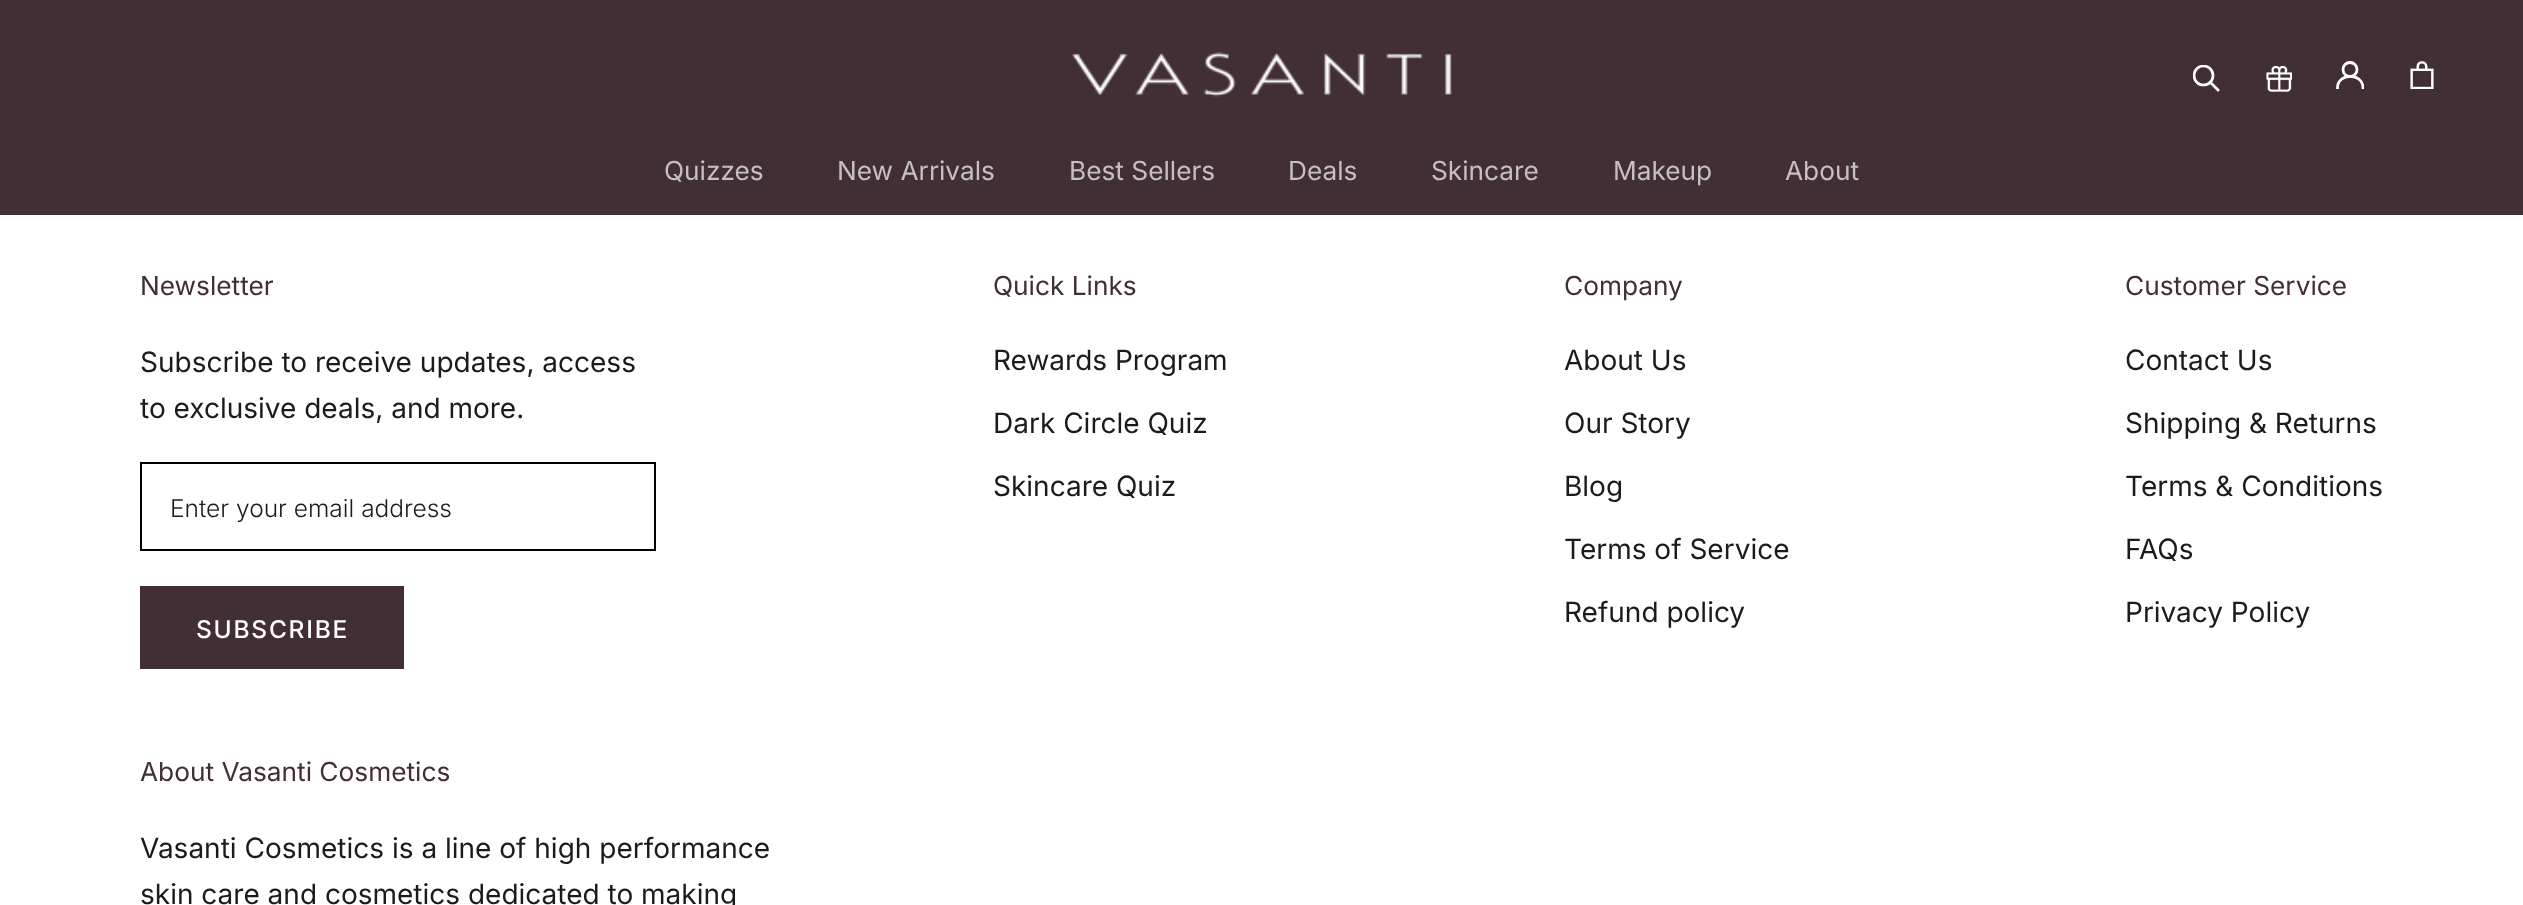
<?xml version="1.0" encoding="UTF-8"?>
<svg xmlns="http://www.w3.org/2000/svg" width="2523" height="905">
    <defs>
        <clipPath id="clip1"><rect x="2193" y="65" width="28" height="28"/></clipPath>
        <clipPath id="clip2"><rect x="2336" y="61" width="28" height="28"/></clipPath>
    </defs>
    <rect width="100%" height="100%" fill="#FFFFFF"/>
    <rect x="0" y="0" width="2523" height="215" fill="#422E35"/>
    <image x="1072" y="52" width="381" height="45" href="img_01.png"/>
    <path d="M 2218 90 L 2210.5 82.5" fill="none" stroke="#FFFFFF" stroke-width="2.7" stroke-linecap="square"/>
    <g clip-path="url(#clip1)">
        <circle cx="2203.5" cy="75.5" r="9.5" fill="none" stroke="#FFFFFF" stroke-width="2.7"/>
    </g>
    <image x="2266" y="66" width="26" height="26" href="img_02.png"/>
    <g clip-path="url(#clip2)">
        <path d="M 2337.5 88 C 2337.5 72.5 2363 72.5 2363 88" fill="none" stroke="#FFFFFF" stroke-width="2.8" stroke-linecap="square"/>
    </g>
    <circle cx="2350" cy="69.5" r="7" fill="none" stroke="#FFFFFF" stroke-width="2.8"/>
    <image x="2410" y="61" width="24" height="28" href="img_03.png"/>
    <text x="664" y="180" font-family="Inter" font-size="26.25" fill="#C6C0C2">Quizzes</text>
    <text x="837" y="180" font-family="Inter" font-size="26.25" fill="#C6C0C2">New Arrivals</text>
    <text x="1069" y="180" font-family="Inter" font-size="26.25" fill="#C6C0C2">Best Sellers</text>
    <text x="1288" y="180" font-family="Inter" font-size="26.25" fill="#C6C0C2">Deals</text>
    <text x="1431" y="180" font-family="Inter" font-size="26.25" fill="#C6C0C2">Skincare</text>
    <text x="1613" y="180" font-family="Inter" font-size="26.25" fill="#C6C0C2">Makeup</text>
    <text x="1785" y="180" font-family="Inter" font-size="26.25" fill="#C6C0C2">About</text>
    <text x="140" y="295" font-family="Inter" font-size="26.25" fill="#422E35">Newsletter</text>
    <text font-family="Inter" font-size="28" fill="#1C1B1B">
        <tspan x="140" y="372">Subscribe to receive updates, access</tspan>
        <tspan x="140" y="418">to exclusive deals, and more.</tspan>
    </text>
    <rect x="141" y="463" width="514" height="87" fill="none" stroke="#000000" stroke-width="2"/>
    <text x="170" y="517" font-family="Inter" font-size="24.5" font-weight="300" fill="#1C1B1B">Enter your email address</text>
    <rect x="140" y="586" width="264" height="83" fill="#422E35"/>
    <text x="196" y="638" font-family="Inter" font-size="24.5" font-weight="500" letter-spacing="1.75" fill="#FFFFFF">SUBSCRIBE</text>
    <text x="993" y="295" font-family="Inter" font-size="26.25" fill="#422E35">Quick Links</text>
    <text x="993" y="370" font-family="Inter" font-size="28" fill="#1C1B1B">Rewards Program</text>
    <text x="993" y="433" font-family="Inter" font-size="28" fill="#1C1B1B">Dark Circle Quiz</text>
    <text x="993" y="496" font-family="Inter" font-size="28" fill="#1C1B1B">Skincare Quiz</text>
    <text x="1564" y="295" font-family="Inter" font-size="26.25" fill="#422E35">Company</text>
    <text x="1564" y="370" font-family="Inter" font-size="28" fill="#1C1B1B">About Us</text>
    <text x="1564" y="433" font-family="Inter" font-size="28" fill="#1C1B1B">Our Story</text>
    <text x="1564" y="496" font-family="Inter" font-size="28" fill="#1C1B1B">Blog</text>
    <text x="1564" y="559" font-family="Inter" font-size="28" fill="#1C1B1B">Terms of Service</text>
    <text x="1564" y="622" font-family="Inter" font-size="28" fill="#1C1B1B">Refund policy</text>
    <text x="2125" y="295" font-family="Inter" font-size="26.25" fill="#422E35">Customer Service</text>
    <text x="2125" y="370" font-family="Inter" font-size="28" fill="#1C1B1B">Contact Us</text>
    <text x="2125" y="433" font-family="Inter" font-size="28" fill="#1C1B1B">Shipping &amp; Returns</text>
    <text x="2125" y="496" font-family="Inter" font-size="28" fill="#1C1B1B">Terms &amp; Conditions</text>
    <text x="2125" y="559" font-family="Inter" font-size="28" fill="#1C1B1B">FAQs</text>
    <text x="2125" y="622" font-family="Inter" font-size="28" fill="#1C1B1B">Privacy Policy</text>
    <text x="140" y="781" font-family="Inter" font-size="26.25" fill="#422E35">About Vasanti Cosmetics</text>
    <text font-family="Inter" font-size="28" fill="#1C1B1B">
        <tspan x="140" y="858">Vasanti Cosmetics is a line of high performance</tspan>
        <tspan x="140" y="904">skin care and cosmetics dedicated to making</tspan>
    </text>
</svg>
